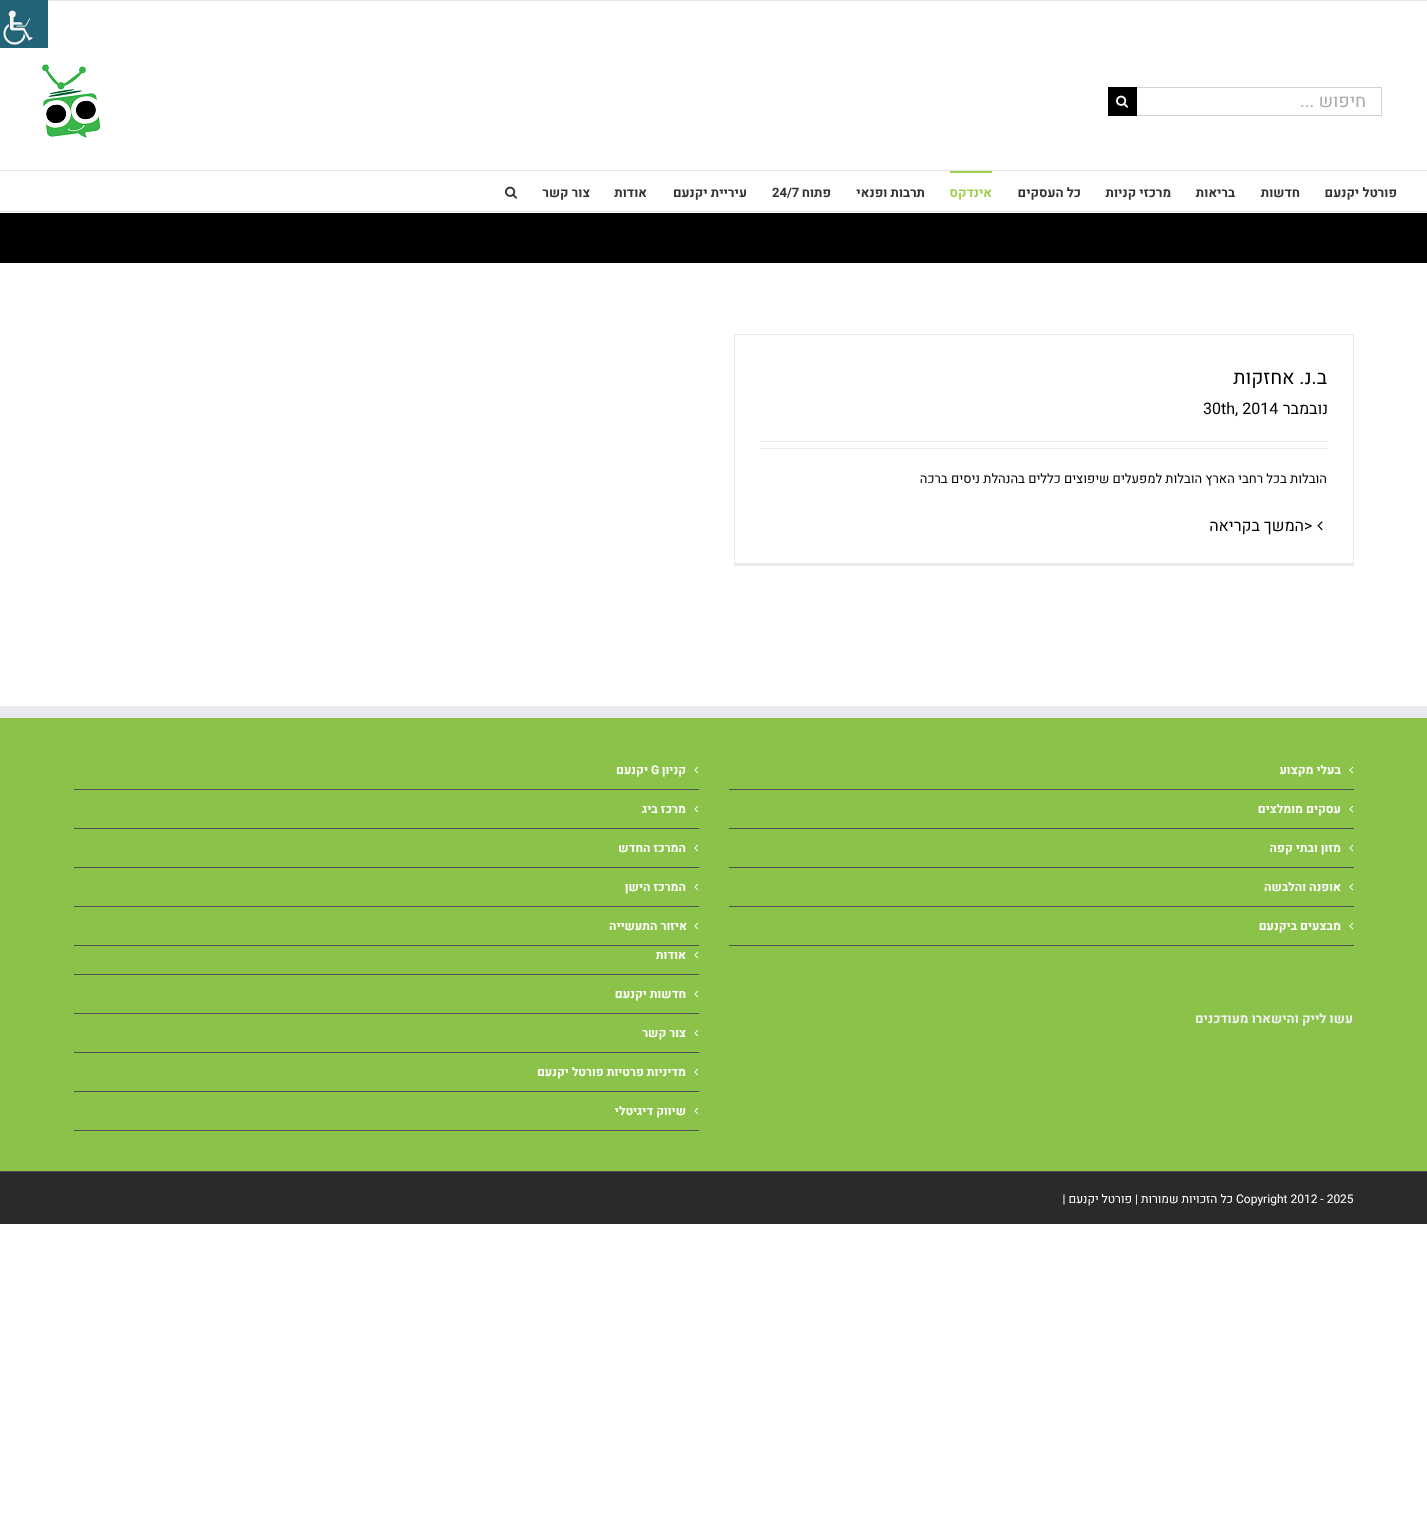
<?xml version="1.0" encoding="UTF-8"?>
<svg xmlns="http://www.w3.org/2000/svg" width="1427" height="1532">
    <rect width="100%" height="100%" fill="#FFFFFF"/>
    <image x="0" y="0" width="48" height="48" href="img_01.png"/>
    <rect x="48" y="0" width="1379" height="1" fill="#E5E5E5"/>
    <rect x="0" y="170" width="1427" height="1" fill="#E5E5E5"/>
    <rect x="1137" y="87" width="245" height="1" fill="#D2D2D2"/>
    <rect x="1381" y="87" width="1" height="29" fill="#D2D2D2"/>
    <rect x="1137" y="115" width="245" height="1" fill="#D2D2D2"/>
    <text x="1366" y="107" font-family="Heebo" font-size="18" direction="rtl" fill="#AAA9A9">חיפוש ...</text>
    <rect x="1108" y="87" width="29" height="29" fill="#000000"/>
    <image x="1116" y="95" width="12" height="13" href="img_02.png"/>
    <image x="42" y="64" width="59" height="74" href="img_03.png"/>
    <rect x="0" y="211" width="1427" height="1" fill="#E5E5E5"/>
    <text x="1397" y="197" font-family="Heebo" font-size="13" font-weight="700" direction="rtl" fill="#333333">פורטל יקנעם</text>
    <text x="1300" y="197" font-family="Heebo" font-size="13" font-weight="700" direction="rtl" fill="#333333">חדשות</text>
    <text x="1235" y="197" font-family="Heebo" font-size="13" font-weight="700" direction="rtl" fill="#333333">בריאות</text>
    <text x="1171" y="197" font-family="Heebo" font-size="13" font-weight="700" direction="rtl" fill="#333333">מרכזי קניות</text>
    <text x="1081" y="197" font-family="Heebo" font-size="13" font-weight="700" direction="rtl" fill="#333333">כל העסקים</text>
    <rect x="950" y="171" width="42" height="2" fill="#A0CE4E"/>
    <text x="992" y="197" font-family="Heebo" font-size="13" font-weight="700" direction="rtl" fill="#A0CE4E">אינדקס</text>
    <text x="925" y="197" font-family="Heebo" font-size="13" font-weight="700" direction="rtl" fill="#333333">תרבות ופנאי</text>
    <text x="831" y="197" font-family="Heebo" font-size="13" font-weight="700" direction="rtl" fill="#333333">פתוח</text>
    <text x="772" y="197" font-family="Heebo" font-size="13" font-weight="700" fill="#333333">24/7</text>
    <text x="747" y="197" font-family="Heebo" font-size="13" font-weight="700" direction="rtl" fill="#333333">עיריית יקנעם</text>
    <text x="647" y="197" font-family="Heebo" font-size="13" font-weight="700" direction="rtl" fill="#333333">אודות</text>
    <text x="590" y="197" font-family="Heebo" font-size="13" font-weight="700" direction="rtl" fill="#333333">צור קשר</text>
    <image x="505" y="186" width="12" height="13" href="img_04.png"/>
    <rect x="0" y="213" width="1427" height="50" fill="#000000"/>
    <rect x="734" y="334" width="620" height="1" fill="#EBEAEA"/>
    <rect x="1353" y="334" width="1" height="232" fill="#EBEAEA"/>
    <rect x="734" y="563" width="620" height="3" fill="#EBEAEA"/>
    <rect x="734" y="334" width="1" height="232" fill="#EBEAEA"/>
    <text x="1327" y="384" font-family="Heebo" font-size="19.5" direction="rtl" fill="#000000">ב.נ. אחזקות</text>
    <text x="1328" y="414" font-family="Heebo" font-size="16" direction="rtl" fill="#000000">נובמבר</text>
    <text x="1203" y="414" font-family="Heebo" font-size="16" fill="#000000">30th, 2014</text>
    <rect x="760" y="441" width="568" height="1" fill="#EBEAEA"/>
    <rect x="760" y="448" width="568" height="1" fill="#EBEAEA"/>
    <text x="1327" y="483" font-family="Heebo" font-size="13" direction="rtl" fill="#000000">הובלות בכל רחבי הארץ הובלות למפעלים שיפוצים כללים בהנהלת ניסים ברכה</text>
    <image x="1317" y="521" width="6" height="10" href="img_05.png"/>
    <text x="1304" y="531" font-family="Heebo" font-size="16" fill="#000000">&gt;</text>
    <text x="1304" y="531" font-family="Heebo" font-size="16" direction="rtl" fill="#000000">המשך בקריאה</text>
    <rect x="0" y="718" width="1427" height="453" fill="#8BC34A"/>
    <rect x="0" y="706" width="1427" height="12" fill="#E9EAEE"/>
    <rect x="729" y="789" width="625" height="1" fill="#505152"/>
    <image x="1349" y="766" width="5" height="8" href="img_06.png"/>
    <text x="1341" y="774" font-family="Heebo" font-size="12" font-weight="700" direction="rtl" fill="#FFFFFF">בעלי מקצוע</text>
    <rect x="729" y="828" width="625" height="1" fill="#505152"/>
    <image x="1349" y="805" width="5" height="8" href="img_06.png"/>
    <text x="1341" y="813" font-family="Heebo" font-size="12" font-weight="700" direction="rtl" fill="#FFFFFF">עסקים מומלצים</text>
    <rect x="729" y="867" width="625" height="1" fill="#505152"/>
    <image x="1349" y="844" width="5" height="8" href="img_06.png"/>
    <text x="1341" y="852" font-family="Heebo" font-size="12" font-weight="700" direction="rtl" fill="#FFFFFF">מזון ובתי קפה</text>
    <rect x="729" y="906" width="625" height="1" fill="#505152"/>
    <image x="1349" y="883" width="5" height="8" href="img_06.png"/>
    <text x="1341" y="891" font-family="Heebo" font-size="12" font-weight="700" direction="rtl" fill="#FFFFFF">אופנה והלבשה</text>
    <rect x="729" y="945" width="625" height="1" fill="#505152"/>
    <image x="1349" y="922" width="5" height="8" href="img_06.png"/>
    <text x="1341" y="930" font-family="Heebo" font-size="12" font-weight="700" direction="rtl" fill="#FFFFFF">מבצעים ביקנעם</text>
    <rect x="74" y="789" width="625" height="1" fill="#505152"/>
    <image x="694" y="766" width="5" height="8" href="img_06.png"/>
    <text x="686" y="774" font-family="Heebo" font-size="12" font-weight="700" direction="rtl" fill="#FFFFFF">קניון</text>
    <text x="651" y="774" font-family="Heebo" font-size="12" font-weight="700" fill="#FFFFFF">G</text>
    <text x="648" y="774" font-family="Heebo" font-size="12" font-weight="700" direction="rtl" fill="#FFFFFF">יקנעם</text>
    <rect x="74" y="828" width="625" height="1" fill="#505152"/>
    <image x="694" y="805" width="5" height="8" href="img_06.png"/>
    <text x="686" y="813" font-family="Heebo" font-size="12" font-weight="700" direction="rtl" fill="#FFFFFF">מרכז ביג</text>
    <rect x="74" y="867" width="625" height="1" fill="#505152"/>
    <image x="694" y="844" width="5" height="8" href="img_06.png"/>
    <text x="686" y="852" font-family="Heebo" font-size="12" font-weight="700" direction="rtl" fill="#FFFFFF">המרכז החדש</text>
    <rect x="74" y="906" width="625" height="1" fill="#505152"/>
    <image x="694" y="883" width="5" height="8" href="img_06.png"/>
    <text x="686" y="891" font-family="Heebo" font-size="12" font-weight="700" direction="rtl" fill="#FFFFFF">המרכז הישן</text>
    <rect x="74" y="945" width="625" height="1" fill="#505152"/>
    <image x="694" y="922" width="5" height="8" href="img_06.png"/>
    <text x="687" y="930" font-family="Heebo" font-size="12" font-weight="700" direction="rtl" fill="#FFFFFF">איזור התעשייה</text>
    <text x="1353" y="1023" font-family="Heebo" font-size="13" font-weight="700" direction="rtl" fill="#EFEFEF">עשו לייק והישארו מעודכנים</text>
    <rect x="74" y="974" width="625" height="1" fill="#505152"/>
    <image x="694" y="951" width="5" height="8" href="img_06.png"/>
    <text x="686" y="959" font-family="Heebo" font-size="12" font-weight="700" direction="rtl" fill="#FFFFFF">אודות</text>
    <rect x="74" y="1013" width="625" height="1" fill="#505152"/>
    <image x="694" y="990" width="5" height="8" href="img_06.png"/>
    <text x="686" y="998" font-family="Heebo" font-size="12" font-weight="700" direction="rtl" fill="#FFFFFF">חדשות יקנעם</text>
    <rect x="74" y="1052" width="625" height="1" fill="#505152"/>
    <image x="694" y="1029" width="5" height="8" href="img_06.png"/>
    <text x="686" y="1037" font-family="Heebo" font-size="12" font-weight="700" direction="rtl" fill="#FFFFFF">צור קשר</text>
    <rect x="74" y="1091" width="625" height="1" fill="#505152"/>
    <image x="694" y="1068" width="5" height="8" href="img_06.png"/>
    <text x="686" y="1076" font-family="Heebo" font-size="12" font-weight="700" direction="rtl" fill="#FFFFFF">מדיניות פרטיות פורטל יקנעם</text>
    <rect x="74" y="1130" width="625" height="1" fill="#505152"/>
    <image x="694" y="1107" width="5" height="8" href="img_06.png"/>
    <text x="686" y="1115" font-family="Heebo" font-size="12" font-weight="700" direction="rtl" fill="#FFFFFF">שיווק דיגיטלי</text>
    <rect x="0" y="1172" width="1427" height="52" fill="#282A2B"/>
    <rect x="0" y="1171" width="1427" height="1" fill="#4B4C4D"/>
    <text x="1236" y="1203" font-family="Heebo" font-size="12" fill="#FFFFFF">Copyright 2012 - 2025</text>
    <text x="1233" y="1203" font-family="Heebo" font-size="12" direction="rtl" fill="#FFFFFF">כל הזכויות שמורות | פורטל יקנעם |</text>
</svg>
